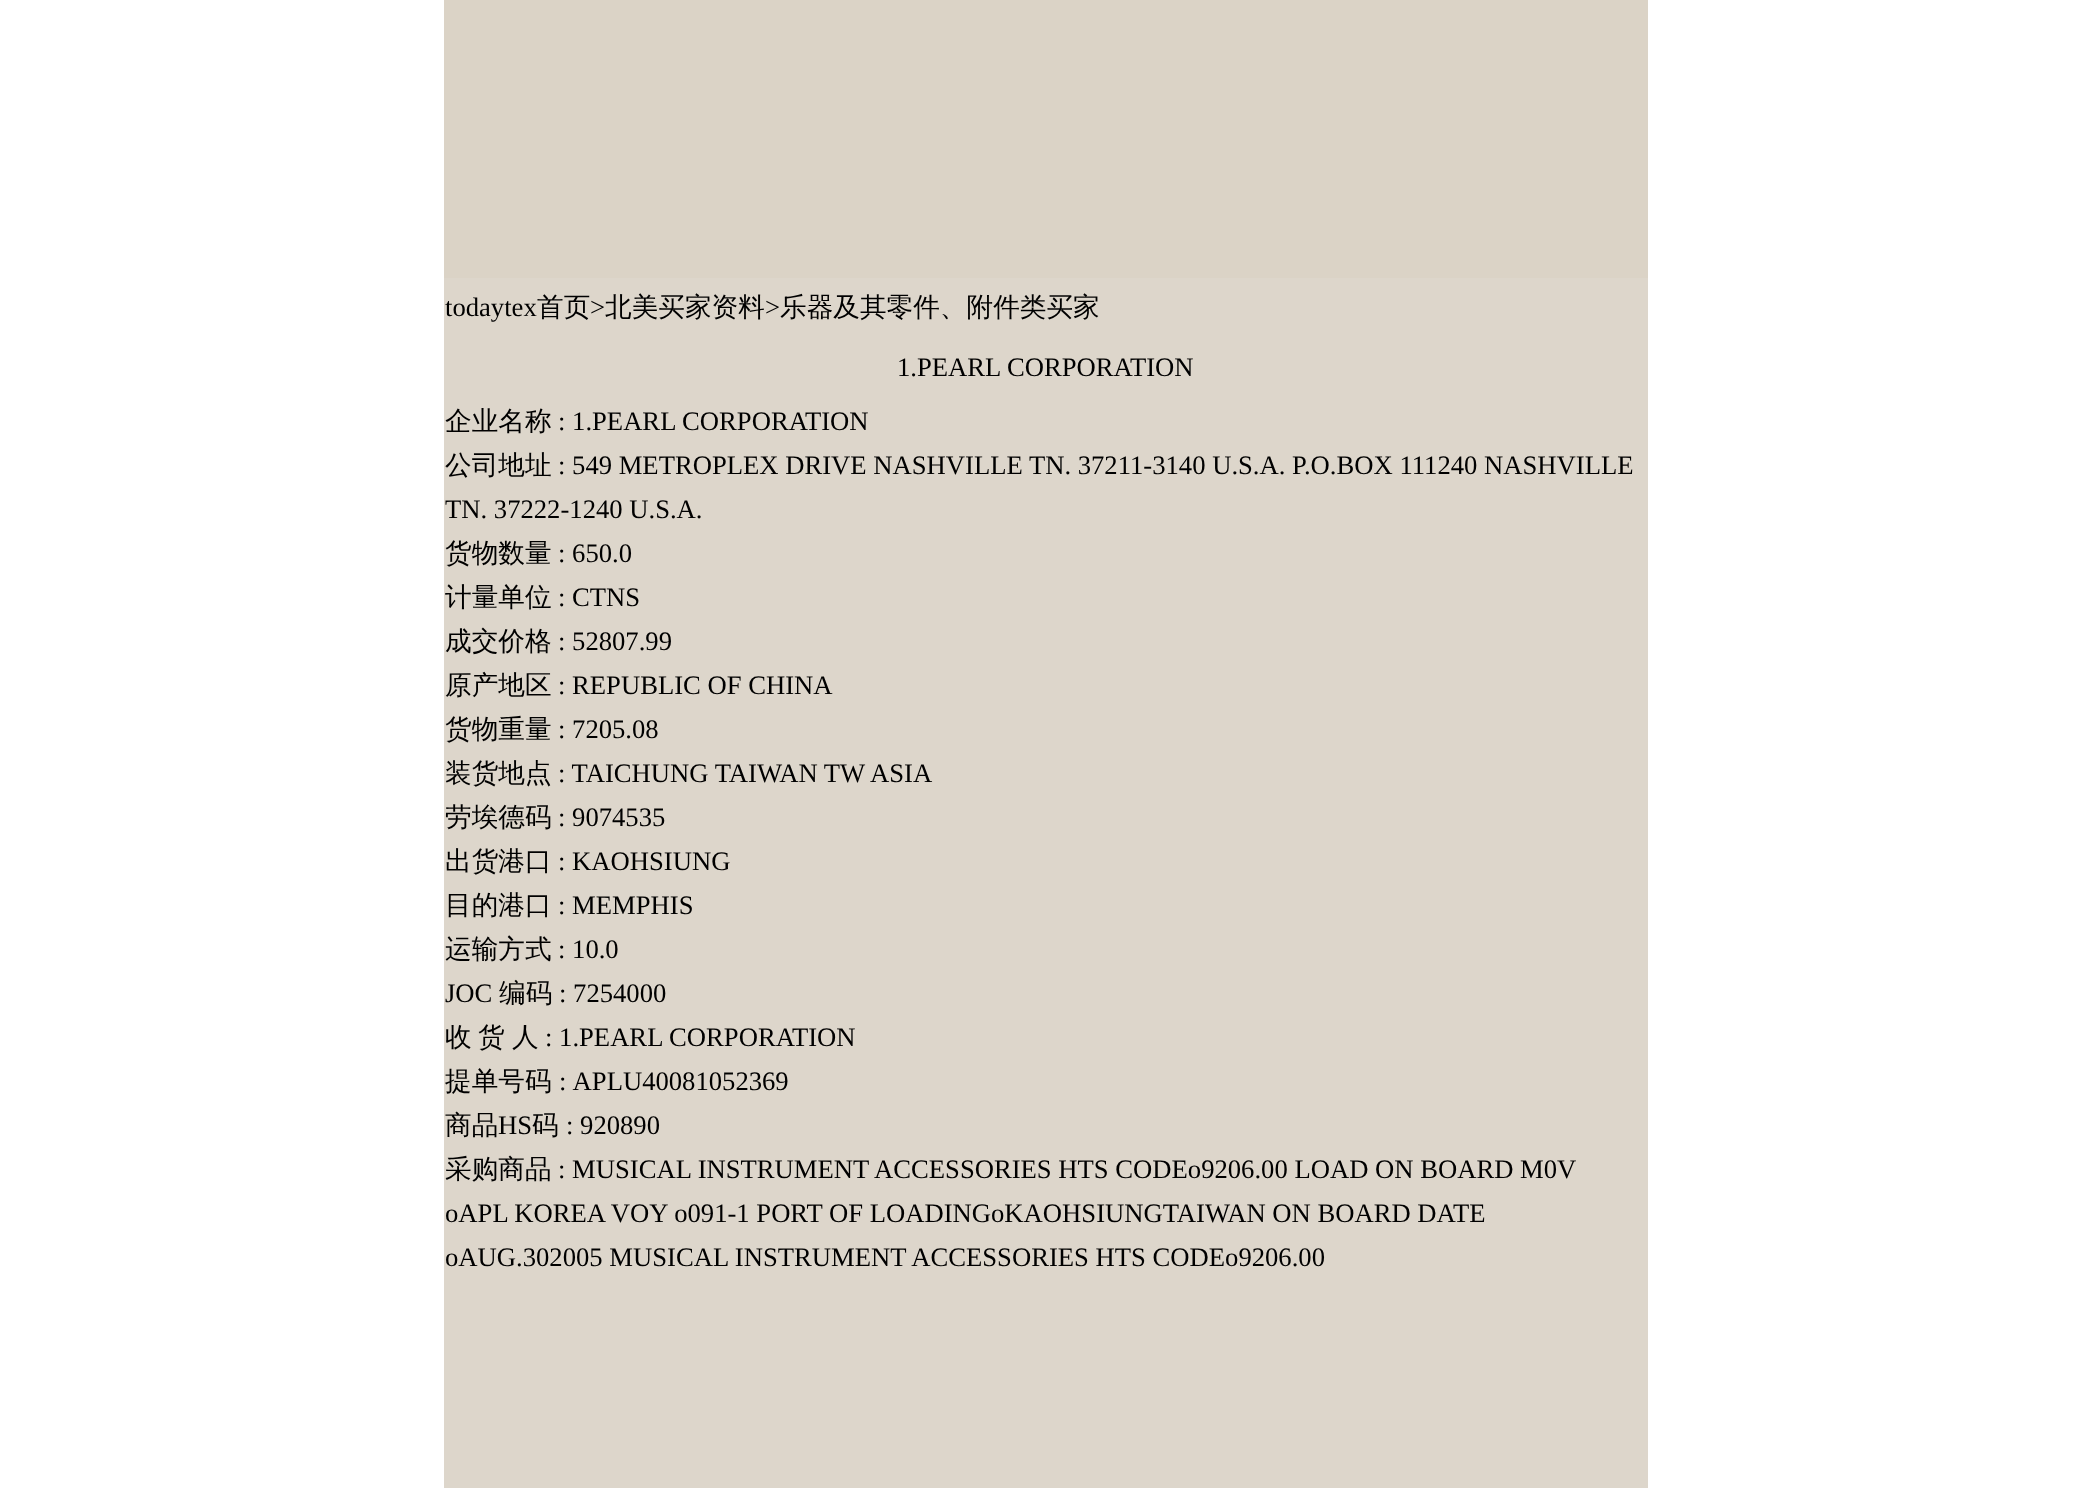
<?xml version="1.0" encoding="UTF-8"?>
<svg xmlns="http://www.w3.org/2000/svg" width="2090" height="1488">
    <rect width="100%" height="100%" fill="#FFFFFF"/>
    <rect x="444" y="0" width="1204" height="278" fill="#DBD3C6"/>
    <rect x="444" y="278" width="1204" height="1210" fill="#DDD6CB"/>
    <text x="445" y="316" font-family="Liberation Serif" font-size="26.65" fill="#000000">todaytex</text>
    <text x="537" y="316" font-family="WenQuanYi Zen Hei" font-size="26.65" font-weight="500" fill="#000000">首页</text>
    <text x="590" y="316" font-family="Liberation Serif" font-size="26.65" fill="#000000">&gt;</text>
    <text x="605" y="316" font-family="WenQuanYi Zen Hei" font-size="26.65" font-weight="500" fill="#000000">北美买家资料</text>
    <text x="765" y="316" font-family="Liberation Serif" font-size="26.65" fill="#000000">&gt;</text>
    <text x="780" y="316" font-family="WenQuanYi Zen Hei" font-size="26.65" font-weight="500" fill="#000000">乐器及其零件、附件类买家</text>
    <text x="897" y="376" font-family="Liberation Serif" font-size="26.65" fill="#000000">1.PEARL CORPORATION</text>
    <text x="445" y="430" font-family="WenQuanYi Zen Hei" font-size="26.65" font-weight="500" fill="#000000">企业名称</text>
    <text x="558" y="430" font-family="Liberation Serif" font-size="26.65" fill="#000000">: 1.PEARL CORPORATION</text>
    <text x="445" y="474" font-family="WenQuanYi Zen Hei" font-size="26.65" font-weight="500" fill="#000000">公司地址</text>
    <text x="558" y="474" font-family="Liberation Serif" font-size="26.65" fill="#000000">: 549 METROPLEX DRIVE NASHVILLE TN. 37211-3140 U.S.A. P.O.BOX 111240 NASHVILLE</text>
    <text x="445" y="518" font-family="Liberation Serif" font-size="26.65" fill="#000000">TN. 37222-1240 U.S.A.</text>
    <text x="445" y="562" font-family="WenQuanYi Zen Hei" font-size="26.65" font-weight="500" fill="#000000">货物数量</text>
    <text x="558" y="562" font-family="Liberation Serif" font-size="26.65" fill="#000000">: 650.0</text>
    <text x="445" y="606" font-family="WenQuanYi Zen Hei" font-size="26.65" font-weight="500" fill="#000000">计量单位</text>
    <text x="558" y="606" font-family="Liberation Serif" font-size="26.65" fill="#000000">: CTNS</text>
    <text x="445" y="650" font-family="WenQuanYi Zen Hei" font-size="26.65" font-weight="500" fill="#000000">成交价格</text>
    <text x="558" y="650" font-family="Liberation Serif" font-size="26.65" fill="#000000">: 52807.99</text>
    <text x="445" y="694" font-family="WenQuanYi Zen Hei" font-size="26.65" font-weight="500" fill="#000000">原产地区</text>
    <text x="558" y="694" font-family="Liberation Serif" font-size="26.65" fill="#000000">: REPUBLIC OF CHINA</text>
    <text x="445" y="738" font-family="WenQuanYi Zen Hei" font-size="26.65" font-weight="500" fill="#000000">货物重量</text>
    <text x="558" y="738" font-family="Liberation Serif" font-size="26.65" fill="#000000">: 7205.08</text>
    <text x="445" y="782" font-family="WenQuanYi Zen Hei" font-size="26.65" font-weight="500" fill="#000000">装货地点</text>
    <text x="558" y="782" font-family="Liberation Serif" font-size="26.65" fill="#000000">: TAICHUNG TAIWAN TW ASIA</text>
    <text x="445" y="826" font-family="WenQuanYi Zen Hei" font-size="26.65" font-weight="500" fill="#000000">劳埃德码</text>
    <text x="558" y="826" font-family="Liberation Serif" font-size="26.65" fill="#000000">: 9074535</text>
    <text x="445" y="870" font-family="WenQuanYi Zen Hei" font-size="26.65" font-weight="500" fill="#000000">出货港口</text>
    <text x="558" y="870" font-family="Liberation Serif" font-size="26.65" fill="#000000">: KAOHSIUNG</text>
    <text x="445" y="914" font-family="WenQuanYi Zen Hei" font-size="26.65" font-weight="500" fill="#000000">目的港口</text>
    <text x="558" y="914" font-family="Liberation Serif" font-size="26.65" fill="#000000">: MEMPHIS</text>
    <text x="445" y="958" font-family="WenQuanYi Zen Hei" font-size="26.65" font-weight="500" fill="#000000">运输方式</text>
    <text x="558" y="958" font-family="Liberation Serif" font-size="26.65" fill="#000000">: 10.0</text>
    <text x="445" y="1002" font-family="Liberation Serif" font-size="26.65" fill="#000000">JOC</text>
    <text x="499" y="1002" font-family="WenQuanYi Zen Hei" font-size="26.65" font-weight="500" fill="#000000">编码</text>
    <text x="559" y="1002" font-family="Liberation Serif" font-size="26.65" fill="#000000">: 7254000</text>
    <text x="445" y="1046" font-family="WenQuanYi Zen Hei" font-size="26.65" font-weight="500" fill="#000000">收</text>
    <text x="478" y="1046" font-family="WenQuanYi Zen Hei" font-size="26.65" font-weight="500" fill="#000000">货</text>
    <text x="512" y="1046" font-family="WenQuanYi Zen Hei" font-size="26.65" font-weight="500" fill="#000000">人</text>
    <text x="545" y="1046" font-family="Liberation Serif" font-size="26.65" fill="#000000">: 1.PEARL CORPORATION</text>
    <text x="445" y="1090" font-family="WenQuanYi Zen Hei" font-size="26.65" font-weight="500" fill="#000000">提单号码</text>
    <text x="559" y="1090" word-spacing="1" font-family="Liberation Serif" font-size="26.65" fill="#000000">: APLU40081052369</text>
    <text x="445" y="1134" font-family="WenQuanYi Zen Hei" font-size="26.65" font-weight="500" fill="#000000">商品</text>
    <text x="498" y="1134" font-family="Liberation Serif" font-size="26.65" fill="#000000">HS</text>
    <text x="532" y="1134" font-family="WenQuanYi Zen Hei" font-size="26.65" font-weight="500" fill="#000000">码</text>
    <text x="566" y="1134" font-family="Liberation Serif" font-size="26.65" fill="#000000">: 920890</text>
    <text x="445" y="1178" font-family="WenQuanYi Zen Hei" font-size="26.65" font-weight="500" fill="#000000">采购商品</text>
    <text x="558" y="1178" font-family="Liberation Serif" font-size="26.65" fill="#000000">: MUSICAL INSTRUMENT ACCESSORIES HTS CODEo9206.00 LOAD ON BOARD M0V</text>
    <text font-family="Liberation Serif" font-size="26.65" fill="#000000">
        <tspan x="445" y="1222">oAPL KOREA VOY o091-1 PORT OF LOADINGoKAOHSIUNGTAIWAN ON BOARD DATE</tspan>
        <tspan x="445" y="1266">oAUG.302005 MUSICAL INSTRUMENT ACCESSORIES HTS CODEo9206.00</tspan>
    </text>
</svg>
